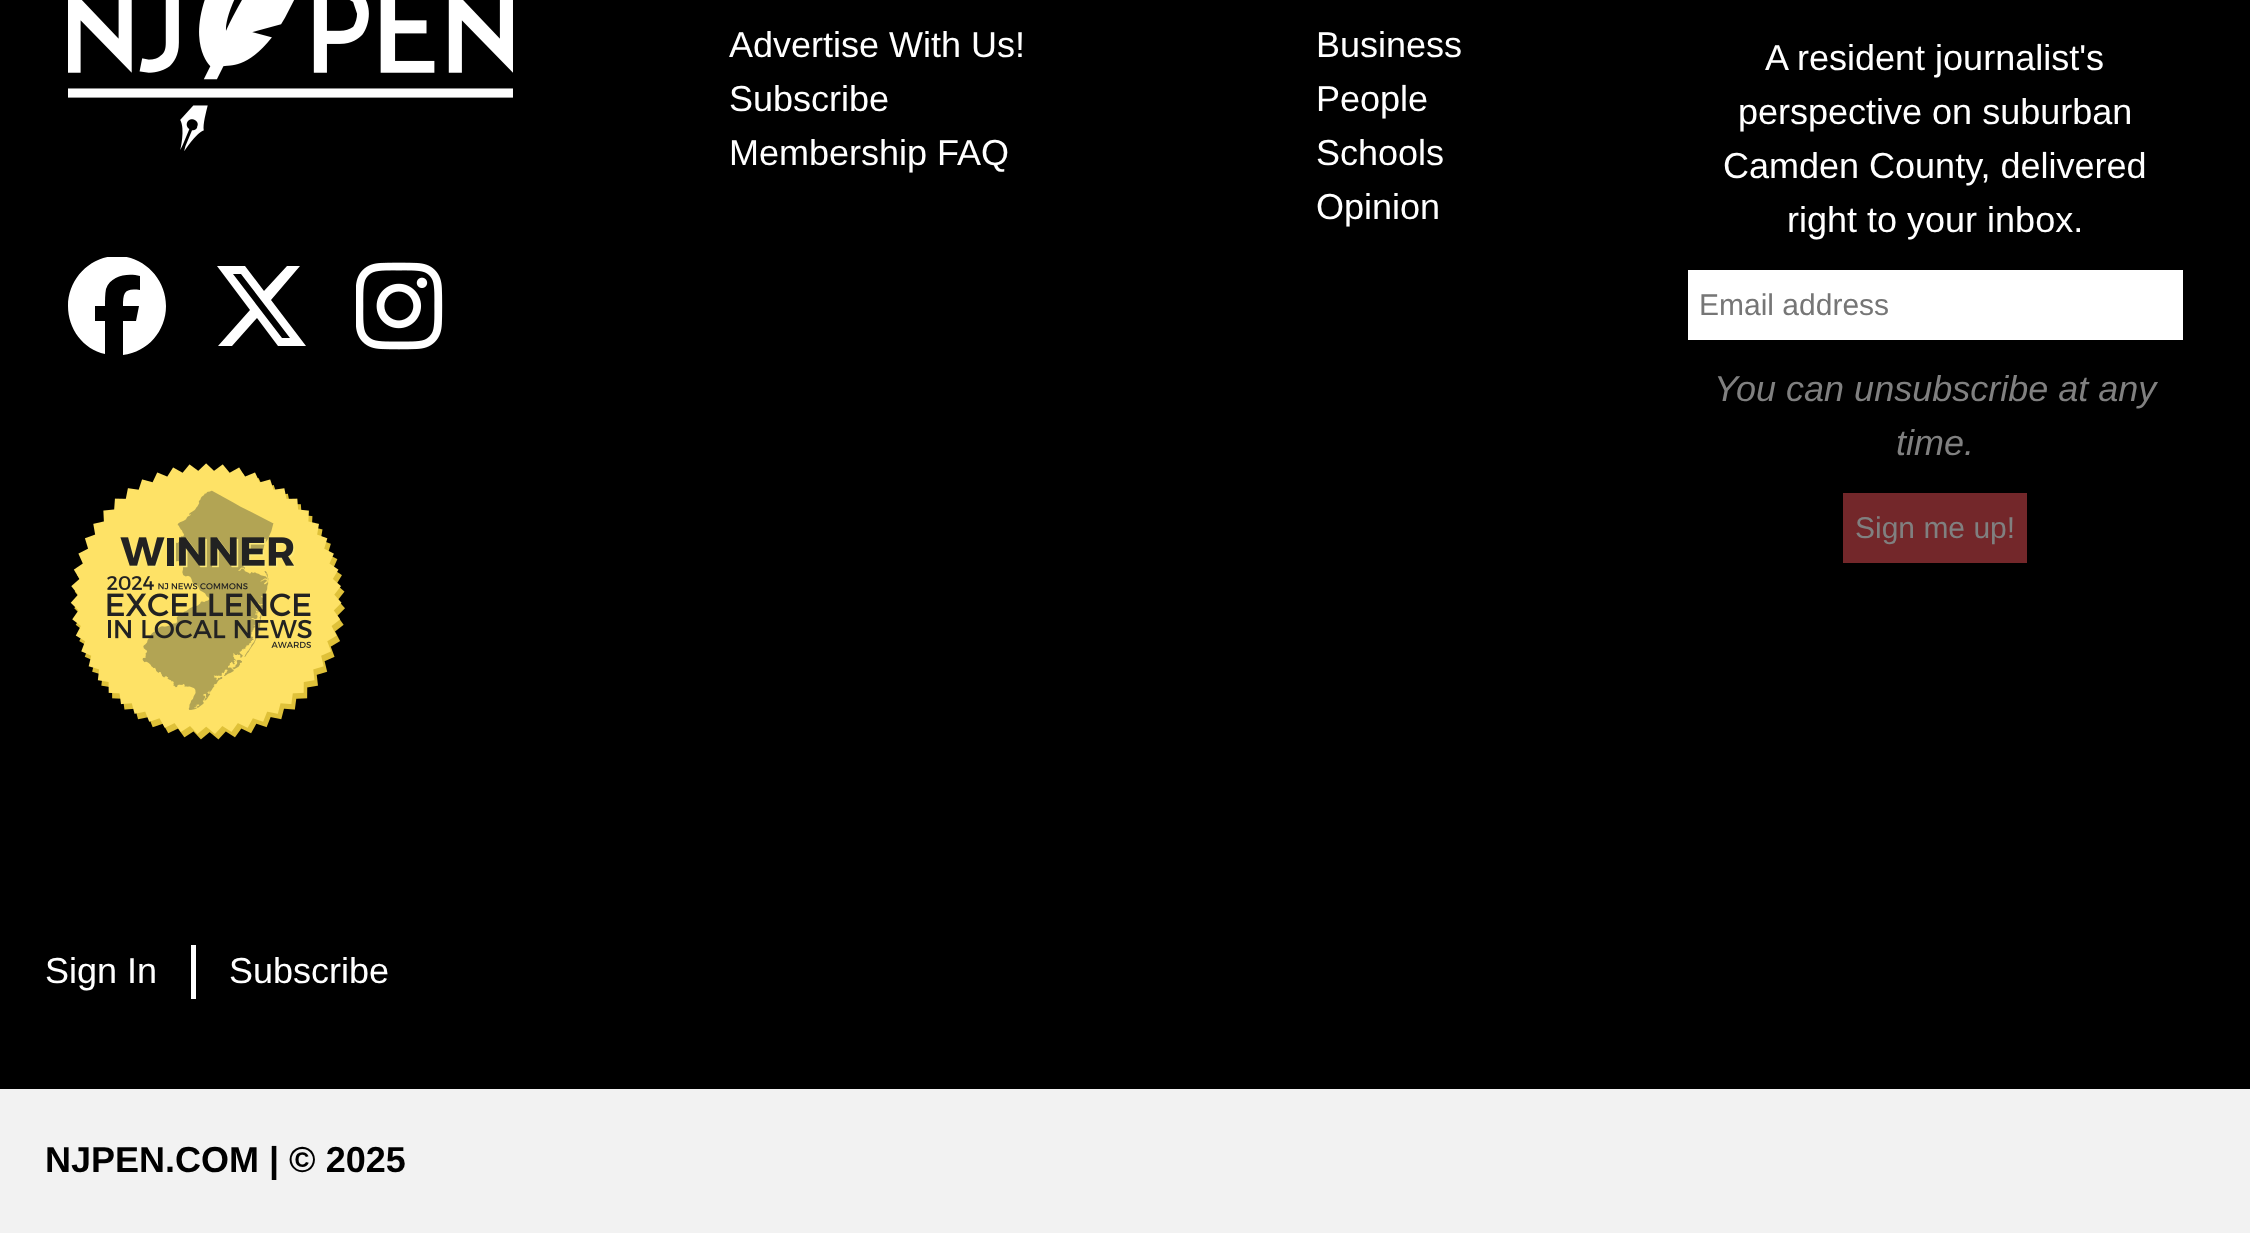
<?xml version="1.0" encoding="UTF-8"?>
<svg xmlns="http://www.w3.org/2000/svg" width="2250" height="1233">
    <defs>
        <clipPath id="clip1"><rect x="68" y="257" width="99" height="99"/></clipPath>
    </defs>
    <rect width="100%" height="100%" fill="#000000"/>
    <image x="68" y="0" width="445" height="151" href="img_01.png"/>
    <g clip-path="url(#clip1)">
        <path d="M 166 306 C 166 279 144 256 117 256 C 90 256 68 279 68 306 C 68 329 83 349 105 354 V 321 H 95 V 306 H 105 C 105 300 105 294 106 289 C 111 275 128 273 140 276 V 290 C 125 288 123 292 123 306 H 139 L 136 321 H 123 V 355 C 148 352 166 331 166 306 Z" fill="#FFFFFF"/>
    </g>
    <path d="M 287 266 H 300 L 271 300 L 306 346 H 278 L 257 318 L 232 346 H 218 L 250 310 L 217 266 H 245 L 264 291 Z M 282 338 H 290 L 241 274 H 233 Z" fill="#FFFFFF"/>
    <image x="356" y="262" width="87" height="88" href="img_02.png"/>
    <image x="70" y="463" width="275" height="277" href="img_03.png"/>
    <text font-family="Liberation Sans" font-size="36" fill="#FFFFFF">
        <tspan x="729" y="57">Advertise With Us!</tspan>
        <tspan x="729" y="111">Subscribe</tspan>
        <tspan x="729" y="165">Membership FAQ</tspan>
    </text>
    <text font-family="Liberation Sans" font-size="36" fill="#FFFFFF">
        <tspan x="1316" y="57">Business</tspan>
        <tspan x="1316" y="111">People</tspan>
        <tspan x="1316" y="165">Schools</tspan>
        <tspan x="1316" y="219">Opinion</tspan>
    </text>
    <text x="1765" y="70" font-family="Liberation Sans" font-size="36" fill="#FFFFFF">A resident journalist's</text>
    <text x="1738" y="124" font-family="Liberation Sans" font-size="36" fill="#FFFFFF">perspective on suburban</text>
    <text x="1723" y="178" font-family="Liberation Sans" font-size="36" fill="#FFFFFF">Camden County, delivered</text>
    <text x="1787" y="232" font-family="Liberation Sans" font-size="36" fill="#FFFFFF">right to your inbox.</text>
    <rect x="1688" y="270" width="495" height="70" fill="#FFFFFF"/>
    <text x="1699" y="315" font-family="Liberation Sans" font-size="30" fill="#767676">Email address</text>
    <text x="1714" y="401" font-family="Liberation Sans" font-size="36" font-style="italic" fill="#808080">You can unsubscribe at any</text>
    <text x="1896" y="455" font-family="Liberation Sans" font-size="36" font-style="italic" fill="#808080">time.</text>
    <rect x="1843" y="493" width="184" height="70" fill="#73272A"/>
    <text x="1855" y="538" font-family="Liberation Sans" font-size="30" fill="#808080">Sign me up!</text>
    <rect x="191" y="945" width="5" height="54" fill="#FFFFFF"/>
    <text x="45" y="983" font-family="Liberation Sans" font-size="36" fill="#FFFFFF">Sign In</text>
    <text x="229" y="983" font-family="Liberation Sans" font-size="36" fill="#FFFFFF">Subscribe</text>
    <rect x="0" y="1089" width="2250" height="144" fill="#F2F2F2"/>
    <text x="45" y="1172" font-family="Liberation Sans" font-size="36" font-weight="700" fill="#000000">NJPEN.COM | © 2025</text>
</svg>
